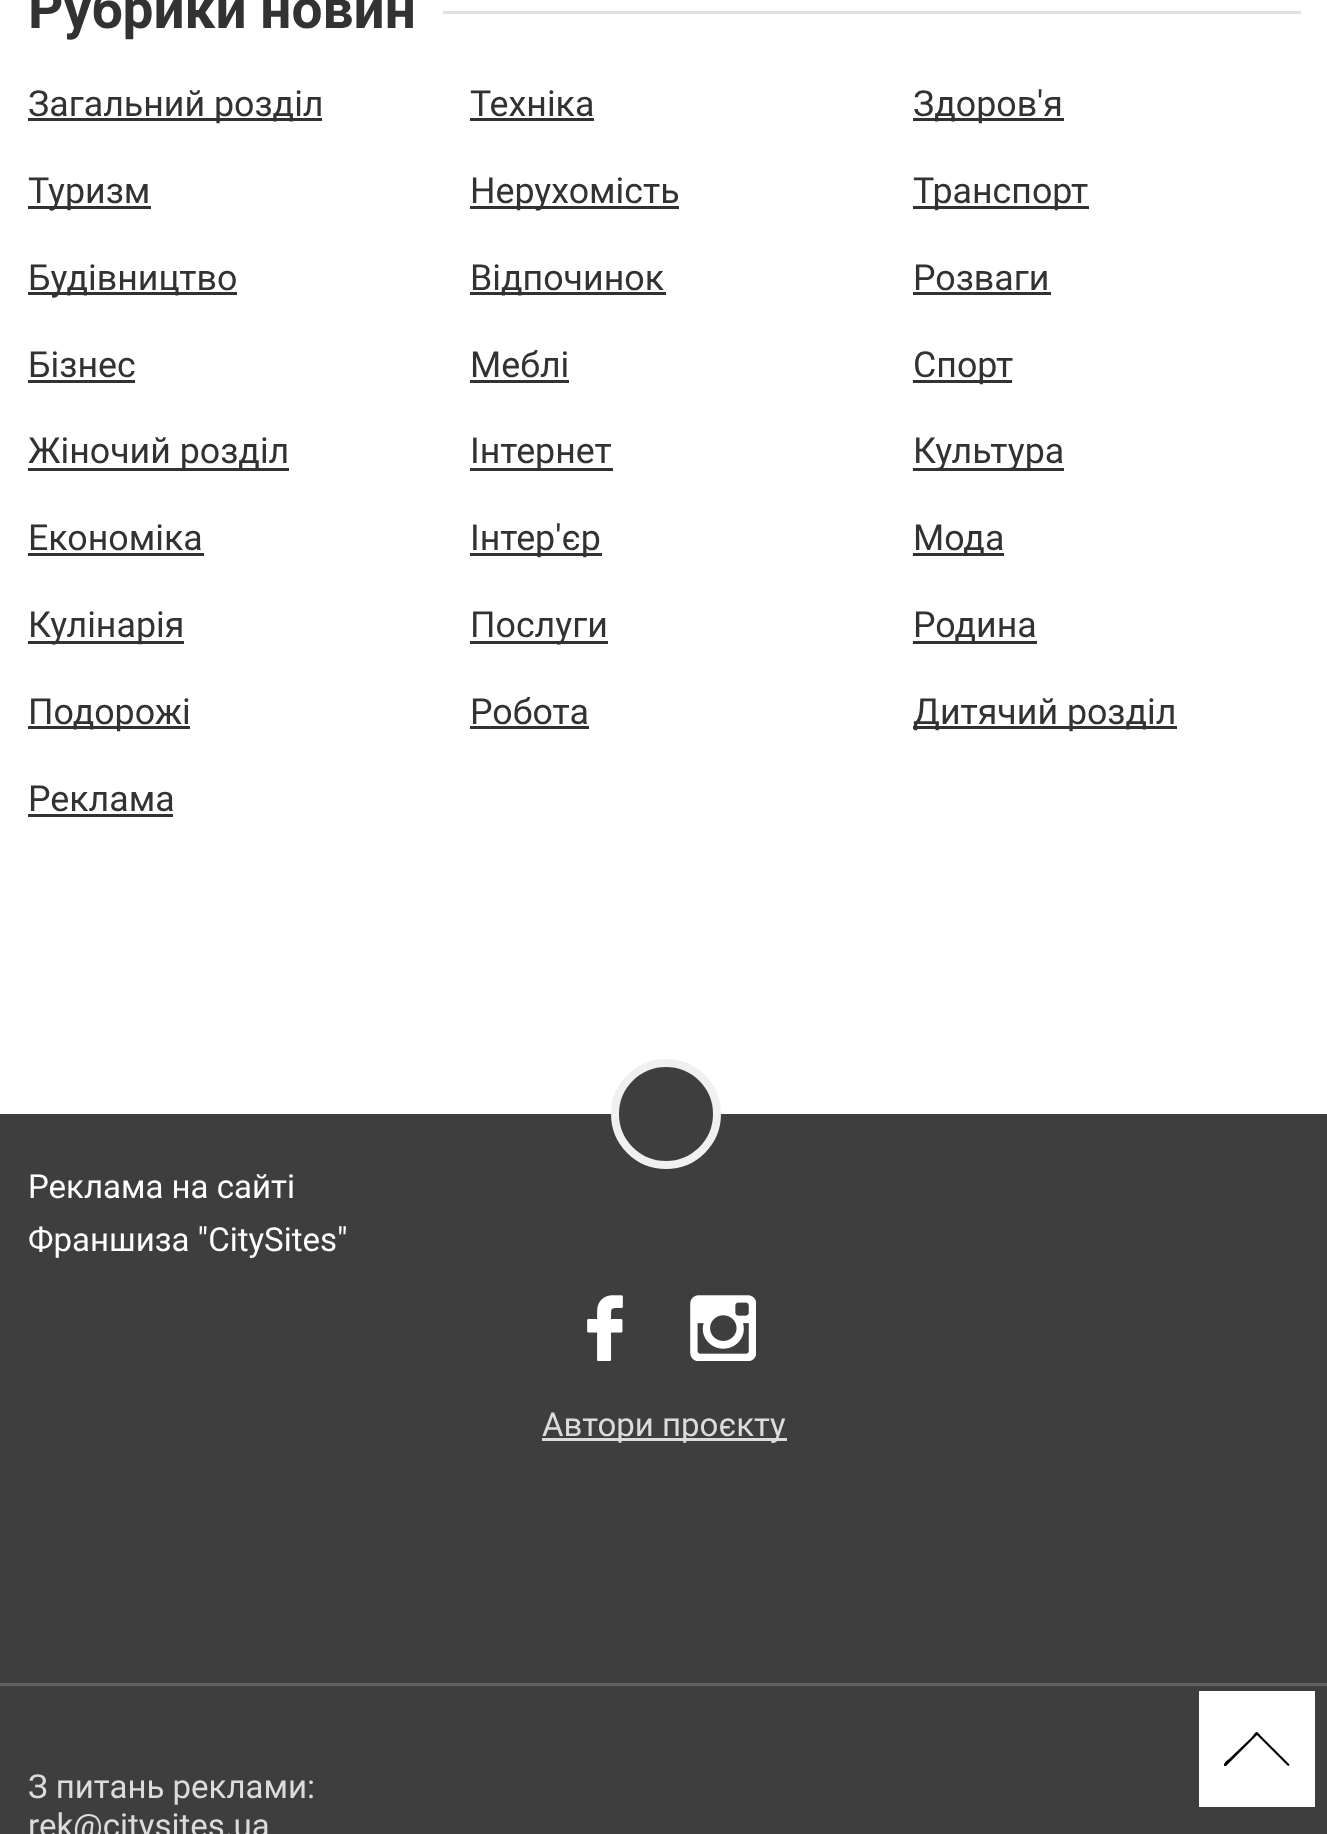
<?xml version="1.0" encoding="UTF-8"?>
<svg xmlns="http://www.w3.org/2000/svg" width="1327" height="1834">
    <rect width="100%" height="100%" fill="#FFFFFF"/>
    <text x="28" y="28" font-family="Roboto" font-size="55" font-weight="700" fill="#323232">Рубрики новин</text>
    <rect x="443" y="11" width="858" height="3" fill="#E0E0E0"/>
    <rect x="28" y="118" width="294" height="3" fill="#323232"/>
    <text x="28" y="116" font-family="Roboto" font-size="35.75" fill="#323232">Загальний розділ</text>
    <text x="470" y="116" font-family="Roboto" font-size="35.75" fill="#323232">Техніка</text>
    <rect x="470" y="118" width="124" height="3" fill="#323232"/>
    <rect x="913" y="118" width="151" height="3" fill="#323232"/>
    <text x="913" y="116" font-family="Roboto" font-size="35.75" fill="#323232">Здоров'я</text>
    <rect x="28" y="206" width="123" height="3" fill="#323232"/>
    <text x="28" y="203" font-family="Roboto" font-size="35.75" fill="#323232">Туризм</text>
    <rect x="470" y="206" width="209" height="3" fill="#323232"/>
    <text x="470" y="203" font-family="Roboto" font-size="35.75" fill="#323232">Нерухомість</text>
    <rect x="913" y="206" width="176" height="3" fill="#323232"/>
    <text x="913" y="203" font-family="Roboto" font-size="35.75" fill="#323232">Транспорт</text>
    <rect x="28" y="292" width="209" height="3" fill="#323232"/>
    <text x="28" y="290" font-family="Roboto" font-size="35.75" fill="#323232">Будівництво</text>
    <rect x="470" y="292" width="196" height="3" fill="#323232"/>
    <text x="470" y="290" font-family="Roboto" font-size="35.75" fill="#323232">Відпочинок</text>
    <text x="913" y="290" font-family="Roboto" font-size="35.75" fill="#323232">Розваги</text>
    <rect x="913" y="292" width="138" height="3" fill="#323232"/>
    <text x="28" y="377" font-family="Roboto" font-size="35.75" fill="#323232">Бізнес</text>
    <rect x="28" y="380" width="107" height="3" fill="#323232"/>
    <text x="470" y="377" font-family="Roboto" font-size="35.75" fill="#323232">Меблі</text>
    <rect x="470" y="380" width="99" height="3" fill="#323232"/>
    <rect x="913" y="380" width="99" height="3" fill="#323232"/>
    <text x="913" y="377" font-family="Roboto" font-size="35.75" fill="#323232">Спорт</text>
    <rect x="28" y="468" width="261" height="3" fill="#323232"/>
    <text x="28" y="463" font-family="Roboto" font-size="35.75" fill="#323232">Жіночий розділ</text>
    <rect x="470" y="468" width="143" height="3" fill="#323232"/>
    <text x="470" y="463" font-family="Roboto" font-size="35.75" fill="#323232">Інтернет</text>
    <rect x="913" y="468" width="151" height="3" fill="#323232"/>
    <text x="913" y="463" font-family="Roboto" font-size="35.75" fill="#323232">Культура</text>
    <text x="28" y="550" font-family="Roboto" font-size="35.75" fill="#323232">Економіка</text>
    <rect x="28" y="553" width="176" height="3" fill="#323232"/>
    <rect x="470" y="553" width="132" height="3" fill="#323232"/>
    <text x="470" y="550" font-family="Roboto" font-size="35.75" fill="#323232">Інтер'єр</text>
    <rect x="913" y="553" width="91" height="3" fill="#323232"/>
    <text x="913" y="550" font-family="Roboto" font-size="35.75" fill="#323232">Мода</text>
    <rect x="28" y="641" width="156" height="3" fill="#323232"/>
    <text x="28" y="637" font-family="Roboto" font-size="35.75" fill="#323232">Кулінарія</text>
    <rect x="470" y="641" width="138" height="3" fill="#323232"/>
    <text x="470" y="637" font-family="Roboto" font-size="35.75" fill="#323232">Послуги</text>
    <rect x="913" y="641" width="124" height="3" fill="#323232"/>
    <text x="913" y="637" font-family="Roboto" font-size="35.75" fill="#323232">Родина</text>
    <rect x="28" y="726" width="162" height="3" fill="#323232"/>
    <text x="28" y="724" font-family="Roboto" font-size="35.75" fill="#323232">Подорожі</text>
    <text x="470" y="724" font-family="Roboto" font-size="35.75" fill="#323232">Робота</text>
    <rect x="470" y="726" width="119" height="3" fill="#323232"/>
    <rect x="913" y="726" width="264" height="3" fill="#323232"/>
    <text x="913" y="724" font-family="Roboto" font-size="35.75" fill="#323232">Дитячий розділ</text>
    <text x="28" y="811" font-family="Roboto" font-size="35.75" fill="#323232">Реклама</text>
    <rect x="28" y="814" width="145" height="3" fill="#323232"/>
    <rect x="0" y="1114" width="1327" height="720" fill="#3F3E3E"/>
    <circle cx="666" cy="1114" r="51" fill="#3F3E3E" stroke="#F0F0F0" stroke-width="8"/>
    <text font-family="Roboto" font-size="33" fill="#FFFFFF">
        <tspan x="28" y="1198">Реклама на сайті</tspan>
        <tspan x="28" y="1251">Франшиза "CitySites"</tspan>
    </text>
    <image x="587" y="1295" width="36" height="66" href="img_01.png"/>
    <image x="690" y="1295" width="66" height="66" href="img_02.png"/>
    <rect x="542" y="1438" width="245" height="3" fill="#DCDCDC"/>
    <text x="542" y="1436" font-family="Roboto" font-size="33" fill="#DCDCDC">Автори проєкту</text>
    <rect x="0" y="1683" width="1327" height="3" fill="#636262"/>
    <text font-family="Roboto" font-size="33" fill="#DCDCDC">
        <tspan x="28" y="1798">З питань реклами:</tspan>
        <tspan x="28" y="1837">rek@citysites.ua</tspan>
    </text>
    <rect x="1199" y="1691" width="116" height="116" fill="#FFFFFF"/>
    <path d="M 1289 1764 L 1263 1738 C 1255 1730 1258 1730 1251 1738 L 1229 1759 C 1229 1759 1223 1763 1224 1766 C 1224 1766 1225 1766 1226 1766 L 1257 1735 L 1288 1766 C 1289 1766 1290 1765 1289 1764 Z" fill="#000000"/>
</svg>
